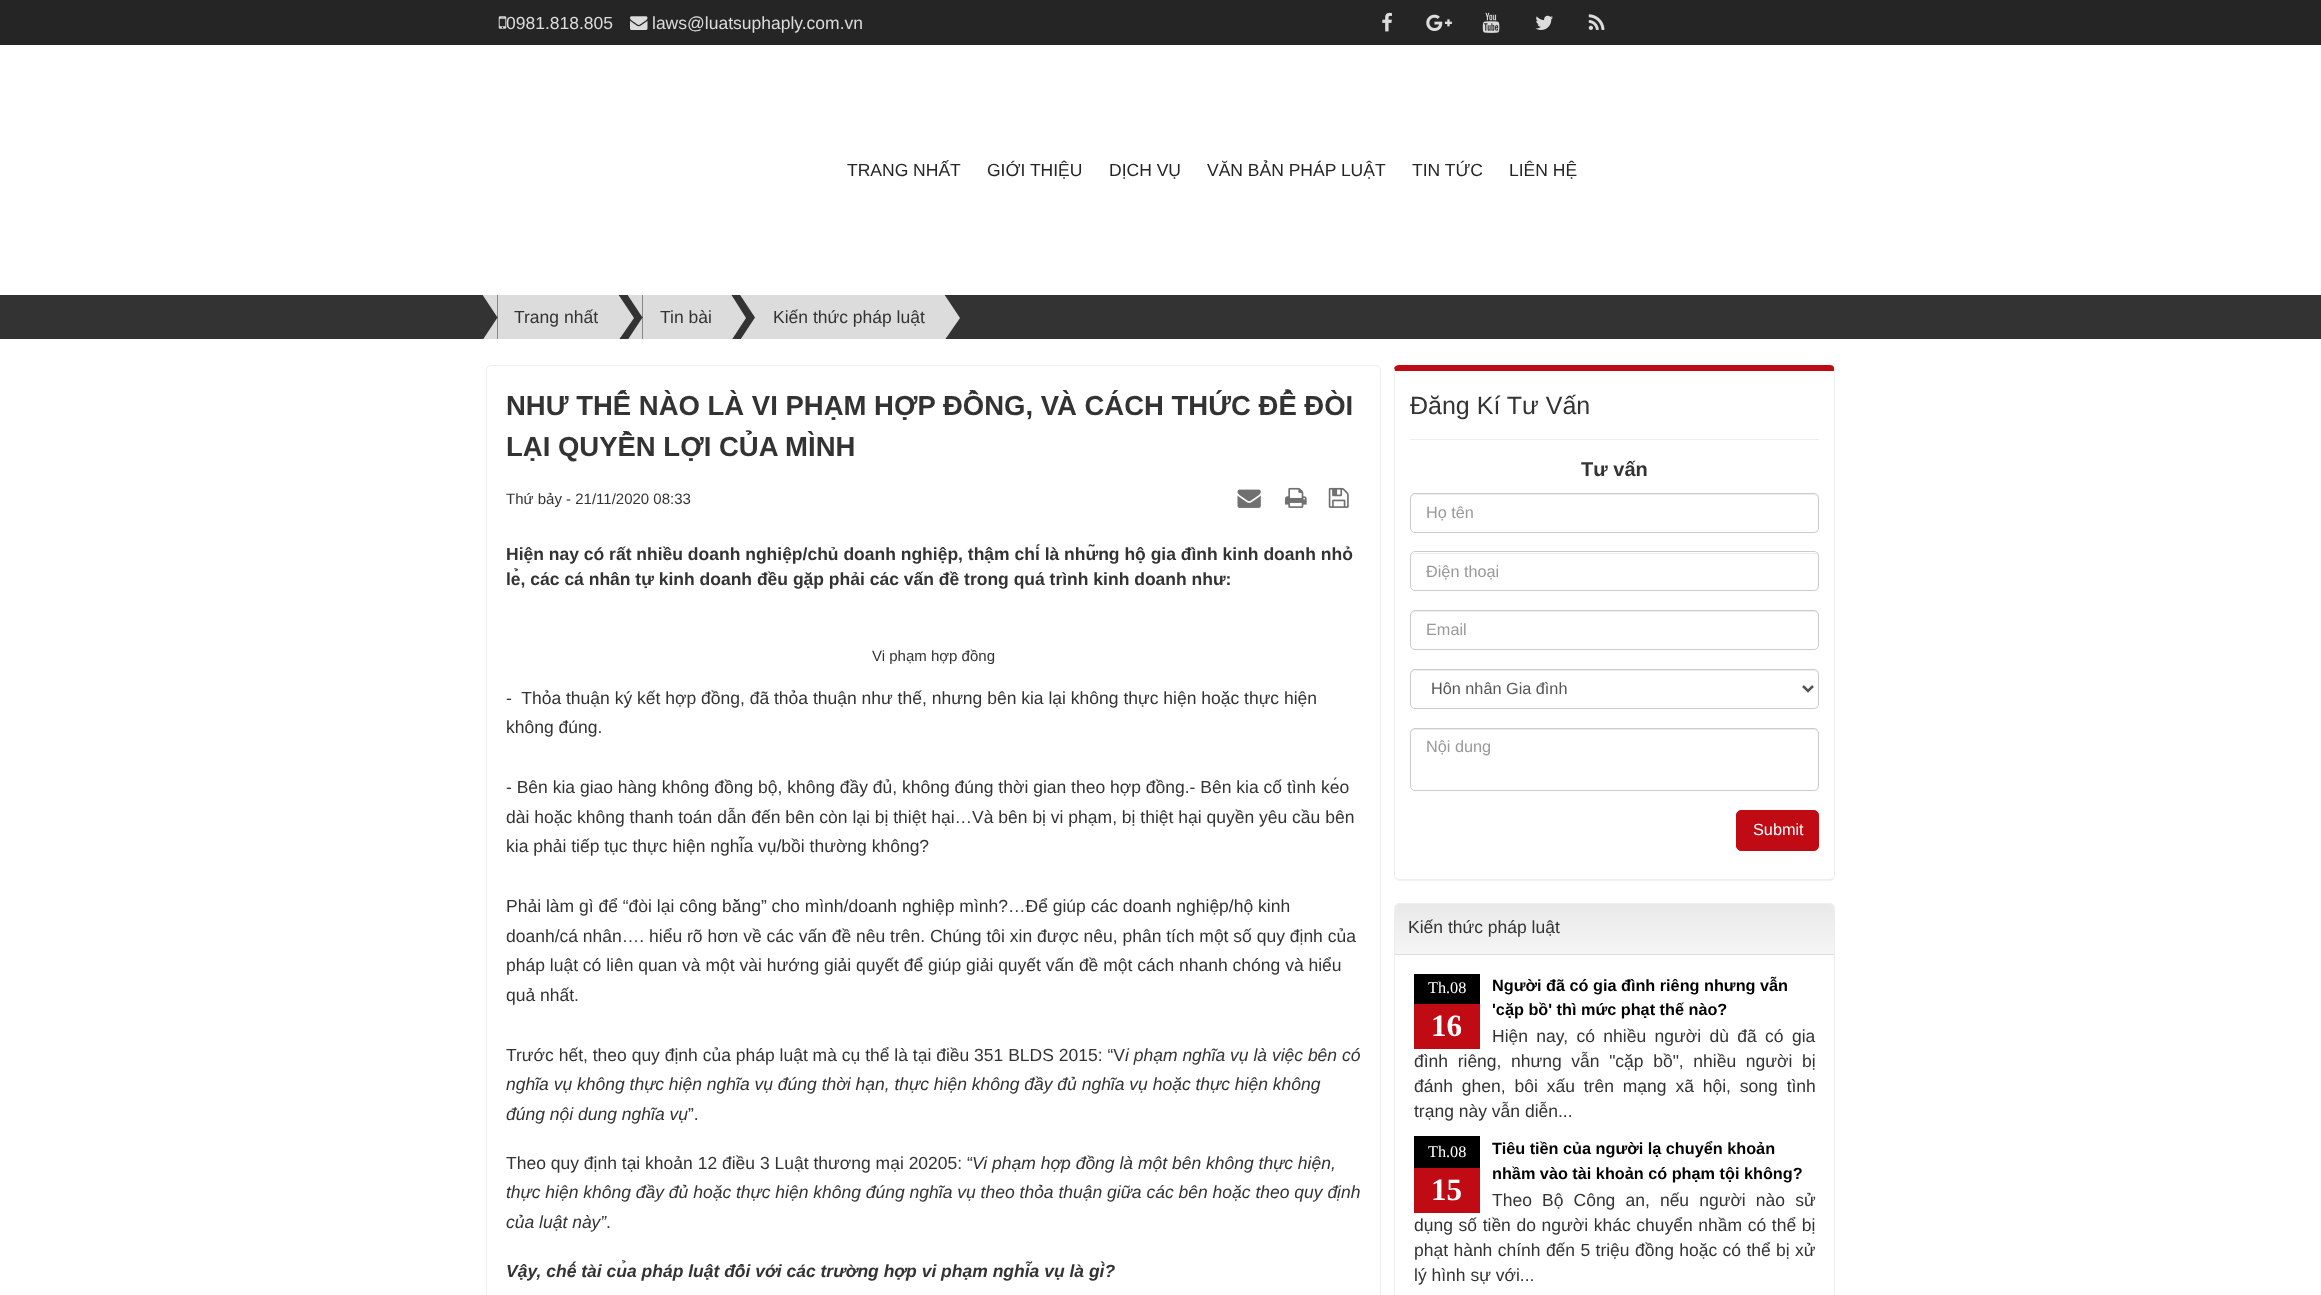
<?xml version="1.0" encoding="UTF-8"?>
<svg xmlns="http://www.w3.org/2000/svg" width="2321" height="1295">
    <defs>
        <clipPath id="clip1"><rect x="480" y="295" width="1363" height="44"/></clipPath>
        <clipPath id="clip2"><path d="M 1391 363 H 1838 V 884 H 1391 Z M 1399 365 H 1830 C 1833 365 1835 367 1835 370 V 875 C 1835 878 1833 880 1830 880 H 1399 C 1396 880 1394 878 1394 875 V 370 C 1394 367 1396 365 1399 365 Z" clip-rule="evenodd"/></clipPath>
        <filter id="blur1" x="-50%" y="-200%" width="200%" height="500%"><feGaussianBlur stdDeviation="0.5"/></filter>
        <linearGradient id="g1" gradientUnits="userSpaceOnUse" x1="1614" y1="904" x2="1614" y2="954"><stop offset="0" stop-color="#E9E9E9"/><stop offset="1" stop-color="#F5F5F5"/></linearGradient>
    </defs>
    <rect width="100%" height="100%" fill="#FFFFFF"/>
    <rect x="0" y="0" width="2321" height="45" fill="#252525"/>
    <image x="498" y="16" width="9" height="13" href="img_01.png"/>
    <text x="506" y="29" font-family="Liberation Sans" font-size="17.5" fill="#DCDCDC">0981.818.805</text>
    <image x="630" y="16" width="18" height="14" href="img_02.png"/>
    <text x="652" y="29" font-family="Liberation Sans" font-size="17.5" fill="#DCDCDC">laws@luatsuphaply.com.vn</text>
    <image x="1382" y="12" width="10" height="20" href="img_03.png"/>
    <image x="1426" y="14" width="26" height="17" href="img_04.png"/>
    <image x="1482" y="12" width="18" height="21" href="img_05.png"/>
    <image x="1535" y="15" width="18" height="15" href="img_06.png"/>
    <image x="1588" y="14" width="17" height="16" href="img_07.png"/>
    <text x="847" y="176" font-family="Liberation Sans" font-size="17.5" fill="#252525">TRANG NHẤT</text>
    <text x="987" y="176" font-family="Liberation Sans" font-size="17.5" fill="#252525">GIỚI THIỆU</text>
    <text x="1109" y="176" font-family="Liberation Sans" font-size="17.5" fill="#252525">DỊCH VỤ</text>
    <text x="1207" y="176" font-family="Liberation Sans" font-size="17.5" fill="#252525">VĂN BẢN PHÁP LUẬT</text>
    <text x="1412" y="176" font-family="Liberation Sans" font-size="17.5" fill="#252525">TIN TỨC</text>
    <text x="1509" y="176" font-family="Liberation Sans" font-size="17.5" fill="#252525">LIÊN HỆ</text>
    <rect x="0" y="295" width="2321" height="44" fill="#333333"/>
    <rect x="498" y="295" width="118" height="44" fill="#DCDCDC"/>
    <g clip-path="url(#clip1)">
        <path d="M 480 291 H 497.5 V 317.5 Z" fill="#DCDCDC"/>
        <path d="M 497.5 344 H 480 L 497.5 317.5 Z" fill="#DCDCDC"/>
    </g>
    <text x="514" y="323" font-family="Liberation Sans" font-size="17.5" fill="#333333">Trang nhất</text>
    <g clip-path="url(#clip1)">
        <path d="M 616 344 V 291 L 634 318 Z" fill="#DCDCDC"/>
    </g>
    <rect x="643" y="295" width="86" height="44" fill="#DCDCDC"/>
    <g clip-path="url(#clip1)">
        <path d="M 625 291 H 642.5 V 317.5 Z" fill="#DCDCDC"/>
        <path d="M 642.5 344 H 625 L 642.5 317.5 Z" fill="#DCDCDC"/>
    </g>
    <text x="660" y="323" font-family="Liberation Sans" font-size="17.5" fill="#333333">Tin bài</text>
    <g clip-path="url(#clip1)">
        <path d="M 729 344 V 291 L 746 318 Z" fill="#DCDCDC"/>
    </g>
    <rect x="755" y="295" width="187" height="44" fill="#DCDCDC"/>
    <g clip-path="url(#clip1)">
        <path d="M 737.5 291 H 755 V 317.5 Z" fill="#DCDCDC"/>
        <path d="M 755 344 H 737.5 L 755 317.5 Z" fill="#DCDCDC"/>
    </g>
    <text x="773" y="323" font-family="Liberation Sans" font-size="17.5" fill="#333333">Kiến thức pháp luật</text>
    <g clip-path="url(#clip1)">
        <path d="M 942 344 V 291 L 960 318 Z" fill="#DCDCDC"/>
    </g>
    <rect x="486.5" y="365.5" width="894" height="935" rx="4.5" fill="none" stroke="#EEEEEE"/>
    <text font-family="Liberation Sans" font-size="27.5" font-weight="700" fill="#333333">
        <tspan x="506" y="415">NHƯ THẾ NÀO LÀ VI PHẠM HỢP ĐỒNG, VÀ CÁCH THỨC ĐỂ ĐÒI</tspan>
        <tspan x="506" y="456">LẠI QUYỀN LỢI CỦA MÌNH</tspan>
    </text>
    <text x="506" y="504" font-family="Liberation Sans" font-size="15" fill="#333333">Thứ bảy - 21/11/2020 08:33</text>
    <image x="1237" y="489" width="24" height="19" href="img_08.png"/>
    <image x="1285" y="487" width="22" height="21" href="img_09.png"/>
    <image x="1328" y="487" width="21" height="21" href="img_10.png"/>
    <text font-family="Liberation Sans" font-size="17.5" font-weight="700" fill="#333333">
        <tspan x="506" y="560">Hiện nay có rất nhiều doanh nghiệp/chủ doanh nghiệp, thậm chí là những hộ gia đình kinh doanh nhỏ</tspan>
        <tspan x="506" y="585">lẻ, các cá nhân tự kinh doanh đều gặp phải các vấn đề trong quá trình kinh doanh như:</tspan>
    </text>
    <text x="872" y="661" font-family="Liberation Sans" font-size="15" fill="#333333">Vi phạm hợp đồng</text>
    <text font-family="Liberation Sans" font-size="17.5" fill="#333333" xml:space="preserve"><tspan x="506" y="704">-  Thỏa thuận ký kết hợp đồng, đã thỏa thuận như thế, nhưng bên kia lại không thực hiện hoặc thực hiện</tspan><tspan x="506" y="733">không đúng.</tspan></text>
    <text font-family="Liberation Sans" font-size="17.5" fill="#333333">
        <tspan x="506" y="793">- Bên kia giao hàng không đồng bộ, không đầy đủ, không đúng thời gian theo hợp đồng.- Bên kia cố tình kéo</tspan>
        <tspan x="506" y="823">dài hoặc không thanh toán dẫn đến bên còn lại bị thiệt hại…Và bên bị vi phạm, bị thiệt hại quyền yêu cầu bên</tspan>
        <tspan x="506" y="852">kia phải tiếp tục thực hiện nghĩa vụ/bồi thường không?</tspan>
    </text>
    <text font-family="Liberation Sans" font-size="17.5" fill="#333333">
        <tspan x="506" y="912">Phải làm gì để “đòi lại công bằng” cho mình/doanh nghiệp mình?…Để giúp các doanh nghiệp/hộ kinh</tspan>
        <tspan x="506" y="942">doanh/cá nhân…. hiểu rõ hơn về các vấn đề nêu trên. Chúng tôi xin được nêu, phân tích một số quy định của</tspan>
        <tspan x="506" y="971">pháp luật có liên quan và một vài hướng giải quyết để giúp giải quyết vấn đề một cách nhanh chóng và hiểu</tspan>
        <tspan x="506" y="1001">quả nhất.</tspan>
    </text>
    <text x="506" y="1061" font-family="Liberation Sans" font-size="17.5" fill="#333333">Trước hết, theo quy định của pháp luật mà cụ thể là tại điều 351 BLDS 2015: “V</text>
    <text x="1125" y="1061" font-family="Liberation Sans" font-size="17.5" font-style="italic" fill="#333333">i phạm nghĩa vụ là việc bên có</text>
    <text font-family="Liberation Sans" font-size="17.5" font-style="italic" fill="#333333">
        <tspan x="506" y="1090">nghĩa vụ không thực hiện nghĩa vụ đúng thời hạn, thực hiện không đầy đủ nghĩa vụ hoặc thực hiện không</tspan>
        <tspan x="506" y="1120">đúng nội dung nghĩa vụ</tspan>
    </text>
    <text x="688" y="1120" font-family="Liberation Sans" font-size="17.5" fill="#333333">”.</text>
    <text x="506" y="1169" font-family="Liberation Sans" font-size="17.5" fill="#333333">Theo quy định tại khoản 12 điều 3 Luật thương mại 20205: “</text>
    <text x="972" y="1169" font-family="Liberation Sans" font-size="17.5" font-style="italic" fill="#333333">Vi phạm hợp đồng là một bên không thực hiện,</text>
    <text font-family="Liberation Sans" font-size="17.5" font-style="italic" fill="#333333">
        <tspan x="506" y="1198">thực hiện không đầy đủ hoặc thực hiện không đúng nghĩa vụ theo thỏa thuận giữa các bên hoặc theo quy định</tspan>
        <tspan x="506" y="1228">của luật này”</tspan>
    </text>
    <text x="606" y="1228" font-family="Liberation Sans" font-size="17.5" fill="#333333">.</text>
    <text x="506" y="1277" font-family="Liberation Sans" font-size="17.5" font-weight="700" font-style="italic" fill="#333333">Vậy, chế tài của pháp luật đối với các trường hợp vi phạm nghĩa vụ là gì?</text>
    <g clip-path="url(#clip2)">
        <rect x="1394" y="366" width="441" height="515" rx="5" fill="#000000" fill-opacity="0.05" filter="url(#blur1)"/>
    </g>
    <path d="M 1399 365 C 1397 365 1395 366 1394 368 L 1395 371 H 1834 V 368 C 1834 366 1832 365 1830 365 Z" fill="#C00B14"/>
    <path d="M 1835 875 V 370 L 1834 368 V 371 V 875 C 1834 876 1834 877 1833 878 L 1834 879 C 1834 878 1835 876 1835 875 Z" fill="#EEEEEE"/>
    <path d="M 1399 880 H 1830 C 1832 880 1833 880 1834 879 L 1833 878 L 1830 879 H 1399 L 1396 878 H 1395 C 1396 879 1397 880 1399 880 Z" fill="#EEEEEE"/>
    <path d="M 1394 368 V 875 C 1394 876 1394 878 1395 878 H 1396 C 1395 877 1395 876 1395 875 V 371 Z" fill="#EEEEEE"/>
    <text x="1410" y="414" font-family="Liberation Sans" font-size="25" fill="#333333">Đăng Kí Tư Vấn</text>
    <rect x="1410" y="439" width="409" height="1" fill="#EEEEEE"/>
    <text x="1581" y="476" font-family="Liberation Sans" font-size="20" font-weight="700" fill="#333333">Tư vấn</text>
    <path d="M 1415 495 H 1814 C 1816 495 1818 497 1818 499 V 498 C 1818 496 1816 494 1814 494 H 1415 C 1413 494 1411 496 1411 498 V 499 C 1411 497 1413 495 1415 495 Z" fill="#ECECEC"/>
    <rect x="1410.5" y="493.5" width="408" height="39" rx="4.5" fill="none" stroke="#CCCCCC"/>
    <text x="1426" y="518" font-family="Liberation Sans" font-size="16.25" fill="#999999">Họ tên</text>
    <path d="M 1415 554 H 1814 C 1816 554 1818 555 1818 558 V 557 C 1818 555 1816 553 1814 553 H 1415 C 1413 553 1411 555 1411 557 V 558 C 1411 555 1413 554 1415 554 Z" fill="#ECECEC"/>
    <rect x="1410.5" y="551.5" width="408" height="39" rx="4.5" fill="none" stroke="#CCCCCC"/>
    <text x="1426" y="577" font-family="Liberation Sans" font-size="16.25" fill="#999999">Điện thoại</text>
    <path d="M 1415 612 H 1814 C 1816 612 1818 614 1818 616 V 615 C 1818 613 1816 611 1814 611 H 1415 C 1413 611 1411 613 1411 615 V 616 C 1411 614 1413 612 1415 612 Z" fill="#ECECEC"/>
    <rect x="1410.5" y="610.5" width="408" height="39" rx="4.5" fill="none" stroke="#CCCCCC"/>
    <text x="1426" y="635" font-family="Liberation Sans" font-size="16.25" fill="#999999">Email</text>
    <path d="M 1415 671 H 1814 C 1816 671 1818 673 1818 675 V 674 C 1818 672 1816 670 1814 670 H 1415 C 1413 670 1411 672 1411 674 V 675 C 1411 673 1413 671 1415 671 Z" fill="#ECECEC"/>
    <rect x="1410.5" y="669.5" width="408" height="39" rx="4.5" fill="none" stroke="#CCCCCC"/>
    <path d="M 1803 686 L 1808 691 L 1813 686" fill="none" stroke="#555555" stroke-width="2.5"/>
    <text x="1431" y="694" font-family="Liberation Sans" font-size="16.25" fill="#555555">Hôn nhân Gia đình</text>
    <path d="M 1415 730 H 1814 C 1816 730 1818 732 1818 734 V 733 C 1818 731 1816 729 1814 729 H 1415 C 1413 729 1411 731 1411 733 V 734 C 1411 732 1413 730 1415 730 Z" fill="#ECECEC"/>
    <rect x="1410.5" y="728.5" width="408" height="62" rx="4.5" fill="none" stroke="#CCCCCC"/>
    <text x="1426" y="752" font-family="Liberation Sans" font-size="16.25" fill="#999999">Nội dung</text>
    <rect x="1736.5" y="810.5" width="82" height="40" rx="4.5" fill="#C00B14" stroke="#C00B14"/>
    <text x="1753" y="835" font-family="Liberation Sans" font-size="16.25" fill="#FFFFFF">Submit</text>
    <rect x="1394.5" y="903.5" width="440" height="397" rx="4.5" fill="none" stroke="#EEEEEE"/>
    <path d="M 1399 904 H 1830 C 1832 904 1834 906 1834 908 V 954 H 1395 V 908 C 1395 906 1397 904 1399 904 Z" fill="url(#g1)"/>
    <rect x="1395" y="954" width="439" height="1" fill="#DDDDDD"/>
    <text x="1408" y="933" font-family="Liberation Sans" font-size="17.5" fill="#333333">Kiến thức pháp luật</text>
    <rect x="1414" y="974" width="66" height="30" fill="#000000"/>
    <text x="1428" y="993" font-family="Liberation Serif" font-size="16.25" fill="#FFFFFF">Th.08</text>
    <rect x="1414" y="1004" width="66" height="45" fill="#C00B14"/>
    <text x="1431" y="1036" font-family="Liberation Serif" font-size="31" font-weight="700" fill="#FFFFFF">16</text>
    <text font-family="Liberation Sans" font-size="16.25" font-weight="700" fill="#000000">
        <tspan x="1492" y="991">Người đã có gia đình riêng nhưng vẫn</tspan>
        <tspan x="1492" y="1015">'cặp bồ' thì mức phạt thế nào?</tspan>
    </text>
    <text x="1492" y="1042" word-spacing="3.5" font-family="Liberation Sans" font-size="17.5" fill="#333333">Hiện nay, có nhiều người dù đã có gia</text>
    <text font-family="Liberation Sans" font-size="17.5" fill="#333333">
        <tspan x="1414" y="1067" word-spacing="4.75">đình riêng, nhưng vẫn "cặp bồ", nhiều người bị</tspan>
        <tspan x="1414" y="1092" word-spacing="4">đánh ghen, bôi xấu trên mạng xã hội, song tình</tspan>
        <tspan x="1414" y="1117">trạng này vẫn diễn...</tspan>
    </text>
    <rect x="1414" y="1136" width="66" height="32" fill="#000000"/>
    <text x="1428" y="1157" font-family="Liberation Serif" font-size="16.25" fill="#FFFFFF">Th.08</text>
    <rect x="1414" y="1168" width="66" height="45" fill="#C00B14"/>
    <text x="1431" y="1200" font-family="Liberation Serif" font-size="31" font-weight="700" fill="#FFFFFF">15</text>
    <text font-family="Liberation Sans" font-size="16.25" font-weight="700" fill="#000000">
        <tspan x="1492" y="1154">Tiêu tiền của người lạ chuyển khoản</tspan>
        <tspan x="1492" y="1179">nhầm vào tài khoản có phạm tội không?</tspan>
    </text>
    <text x="1492" y="1206" word-spacing="5.25" font-family="Liberation Sans" font-size="17.5" fill="#333333">Theo Bộ Công an, nếu người nào sử</text>
    <text font-family="Liberation Sans" font-size="17.5" fill="#333333">
        <tspan x="1414" y="1231" word-spacing="0.75">dụng số tiền do người khác chuyển nhầm có thể bị</tspan>
        <tspan x="1414" y="1256" word-spacing="0.5">phạt hành chính đến 5 triệu đồng hoặc có thể bị xử</tspan>
        <tspan x="1414" y="1281">lý hình sự với...</tspan>
    </text>
</svg>
